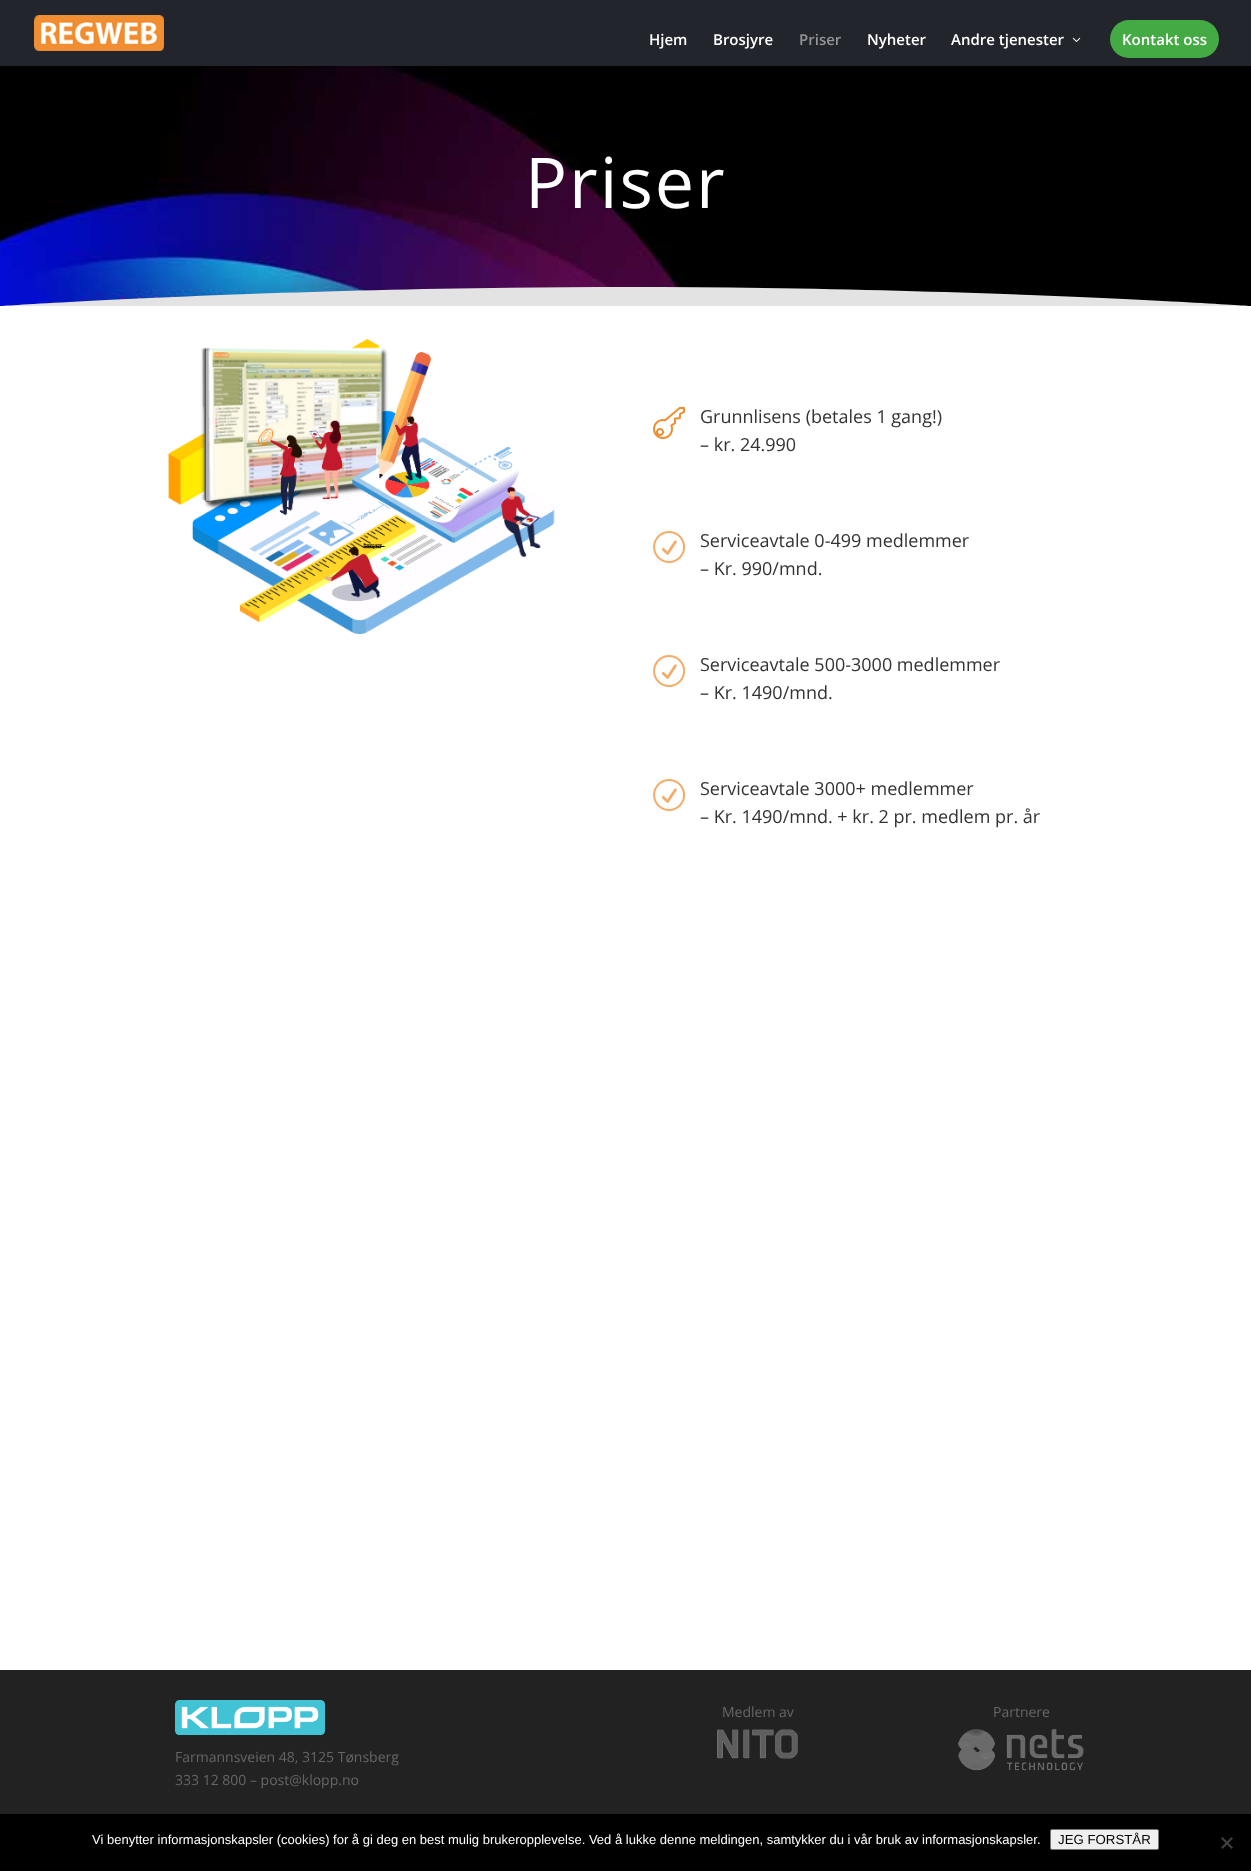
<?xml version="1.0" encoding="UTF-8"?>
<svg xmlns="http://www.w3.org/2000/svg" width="1251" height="1871">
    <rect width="100%" height="100%" fill="#FFFFFF"/>
    <rect x="0" y="0" width="1251" height="66" fill="#22252C"/>
    <image x="34" y="15" width="130" height="36" href="img_01.png"/>
    <text x="649" y="45" font-family="Open Sans" font-size="15" font-weight="600" fill="#FFFFFF">Hjem</text>
    <text x="713" y="45" font-family="Open Sans" font-size="15" font-weight="600" fill="#FFFFFF">Brosjyre</text>
    <text x="799" y="45" font-family="Open Sans" font-size="15" font-weight="600" fill="#939498">Priser</text>
    <text x="867" y="45" font-family="Open Sans" font-size="15" font-weight="600" fill="#FFFFFF">Nyheter</text>
    <text x="951" y="45" font-family="Open Sans" font-size="15" font-weight="600" fill="#FFFFFF">Andre tjenester</text>
    <image x="1072" y="37" width="9" height="5" href="img_02.png"/>
    <rect x="1110" y="20" width="109" height="38" rx="19" fill="#44AA44"/>
    <text x="1122" y="45" font-family="Open Sans" font-size="15" font-weight="600" fill="#FFFFFF">Kontakt oss</text>
    <image x="0" y="66" width="1251" height="240" href="img_03.png"/>
    <text x="525" y="208" font-family="Open Sans" font-size="70" letter-spacing="2" fill="#FFFFFF">Priser</text>
    <path d="M 626 287 C 971 287 1251 306 1251 306 H 0 C 0 306 280 287 626 287 Z" fill="#E3E3E3"/>
    <image x="168" y="339" width="387" height="295" href="img_04.png"/>
    <image x="653" y="407" width="32" height="32" href="img_05.png"/>
    <text font-family="Open Sans" font-size="18" fill="#333333">
        <tspan x="700" y="423">Grunnlisens (betales 1 gang!)</tspan>
        <tspan x="700" y="451">– kr. 24.990</tspan>
    </text>
    <image x="653" y="531" width="33" height="32" href="img_06.png"/>
    <text font-family="Open Sans" font-size="18" fill="#333333">
        <tspan x="700" y="547">Serviceavtale 0-499 medlemmer</tspan>
        <tspan x="700" y="575">– Kr. 990/mnd.</tspan>
    </text>
    <image x="653" y="655" width="33" height="32" href="img_06.png"/>
    <text font-family="Open Sans" font-size="18" fill="#333333">
        <tspan x="700" y="671">Serviceavtale 500-3000 medlemmer</tspan>
        <tspan x="700" y="699">– Kr. 1490/mnd.</tspan>
    </text>
    <image x="653" y="779" width="33" height="32" href="img_06.png"/>
    <text font-family="Open Sans" font-size="18" fill="#333333">
        <tspan x="700" y="795">Serviceavtale 3000+ medlemmer</tspan>
        <tspan x="700" y="823">– Kr. 1490/mnd. + kr. 2 pr. medlem pr. år</tspan>
    </text>
    <rect x="0" y="1670" width="1251" height="144" fill="#222222"/>
    <text x="722" y="1717" font-family="Open Sans" font-size="14" fill="#666666">Medlem av</text>
    <image x="717" y="1729" width="81" height="30" href="img_07.png"/>
    <text x="993" y="1717" font-family="Open Sans" font-size="14" fill="#666666">Partnere</text>
    <image x="958" y="1729" width="126" height="42" href="img_08.png"/>
    <image x="175" y="1700" width="150" height="35" href="img_09.png"/>
    <text font-family="Open Sans" font-size="14" fill="#666666">
        <tspan x="175" y="1762">Farmannsveien 48, 3125 Tønsberg</tspan>
        <tspan x="175" y="1785">333 12 800 – post@klopp.no</tspan>
    </text>
    <rect x="0" y="1814" width="1251" height="57" fill="#000000"/>
    <text x="92" y="1844" font-family="Liberation Sans" font-size="13" fill="#FFFFFF">Vi benytter informasjonskapsler (cookies) for å gi deg en best mulig brukeropplevelse. Ved å lukke denne meldingen, samtykker du i vår bruk av informasjonskapsler.</text>
    <rect x="1050.5" y="1829.5" width="108" height="20" rx="1.5" fill="#EFEFEF" stroke="#767676"/>
    <text x="1058" y="1844" font-family="Liberation Sans" font-size="13.25" fill="#000000">JEG FORSTÅR</text>
    <path d="M 1231.5 1837 L 1233 1838.5 L 1222.5 1849 L 1221 1847.5 Z" fill="#404040"/>
    <path d="M 1221 1838.5 L 1222.5 1837 L 1233 1847.5 L 1231.5 1849 Z" fill="#404040"/>
</svg>
